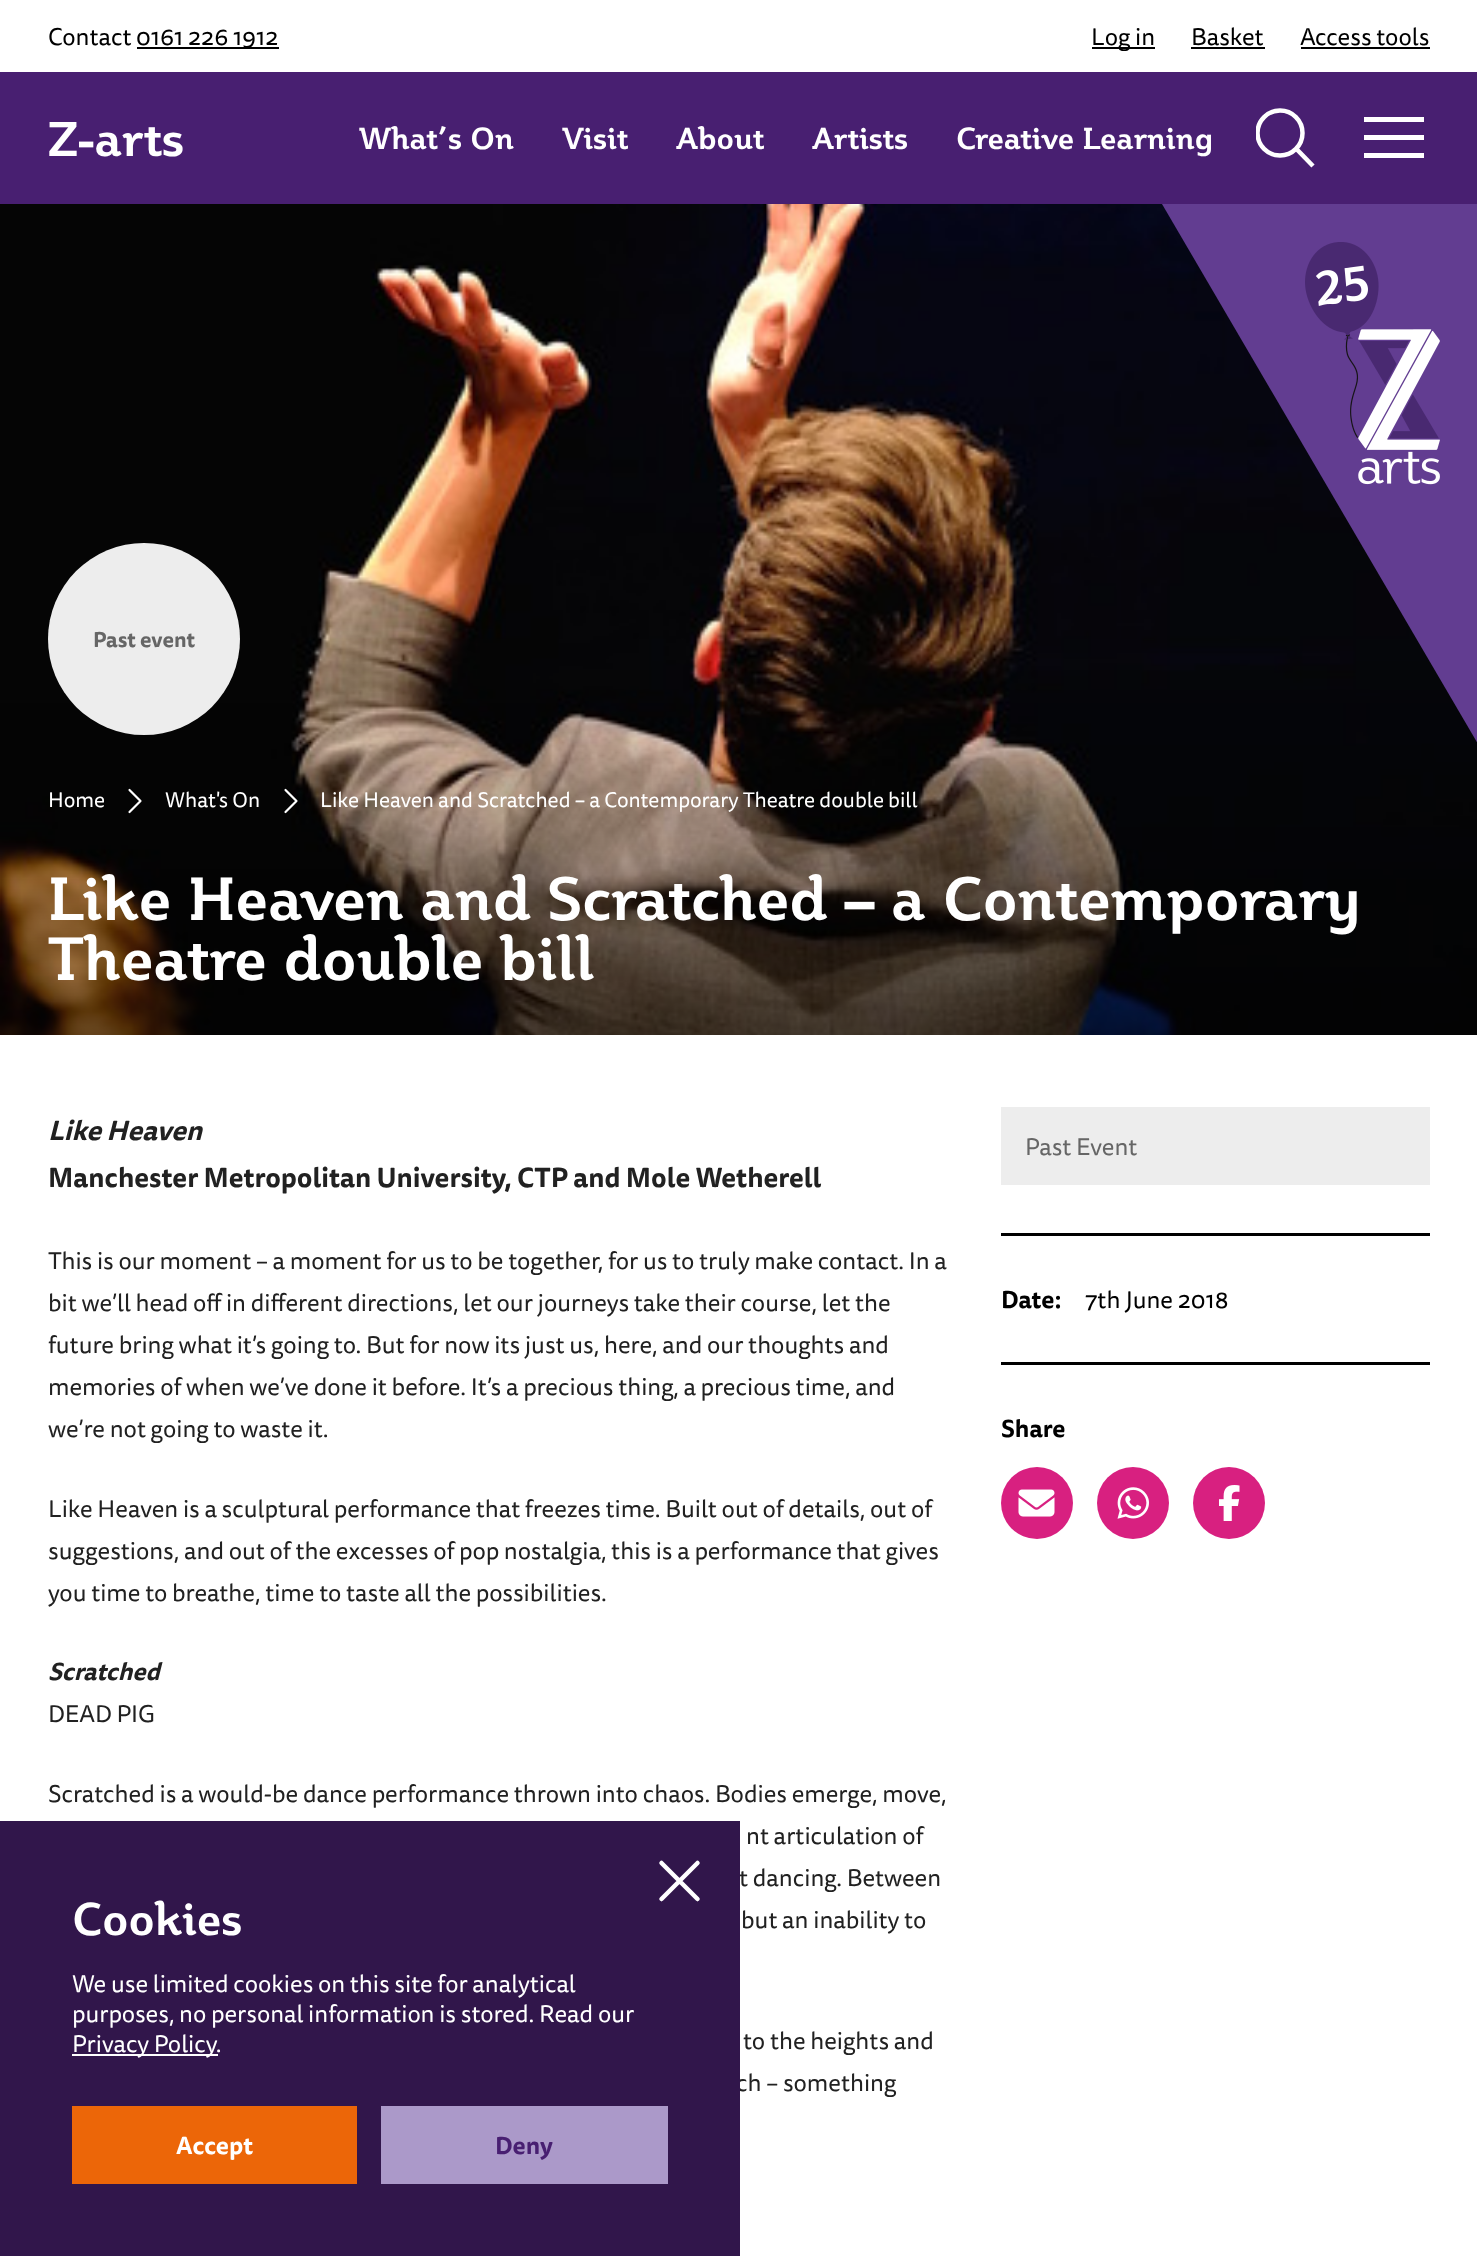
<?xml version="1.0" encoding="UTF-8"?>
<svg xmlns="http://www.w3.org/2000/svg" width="1477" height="2256">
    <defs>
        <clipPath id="clip1"><rect x="1256" y="108" width="60" height="60"/></clipPath>
    </defs>
    <rect width="100%" height="100%" fill="#FFFFFF"/>
    <text x="48" y="45" font-family="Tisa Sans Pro" font-size="24" fill="#000000">Contact</text>
    <rect x="137" y="47" width="142" height="2" fill="#000000"/>
    <text x="136" y="45" font-family="Tisa Sans Pro" font-size="24" fill="#000000">0161 226 1912</text>
    <rect x="1092" y="47" width="63" height="2" fill="#000000"/>
    <text x="1091" y="45" font-family="Tisa Sans Pro" font-size="24" fill="#000000">Log in</text>
    <text x="1191" y="45" font-family="Tisa Sans Pro" font-size="24" fill="#000000">Basket</text>
    <rect x="1191" y="47" width="74" height="2" fill="#000000"/>
    <text x="1300" y="45" font-family="Tisa Sans Pro" font-size="24" fill="#000000">Access tools</text>
    <rect x="1301" y="47" width="129" height="2" fill="#000000"/>
    <rect x="0" y="72" width="1477" height="132" fill="#481F71"/>
    <text x="48" y="156" font-family="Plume" font-size="48" font-weight="700" fill="#FFFFFF">Z-arts</text>
    <text x="359" y="149" font-family="Plume" font-size="30" font-weight="700" fill="#FFFFFF">What’s On</text>
    <text x="562" y="149" font-family="Plume" font-size="30" font-weight="700" fill="#FFFFFF">Visit</text>
    <text x="676" y="149" font-family="Plume" font-size="30" font-weight="700" fill="#FFFFFF">About</text>
    <text x="812" y="149" font-family="Plume" font-size="30" font-weight="700" fill="#FFFFFF">Artists</text>
    <text x="956" y="149" font-family="Plume" font-size="30" font-weight="700" fill="#FFFFFF">Creative Learning</text>
    <g clip-path="url(#clip1)">
        <circle cx="1280" cy="133" r="22.5" fill="none" stroke="#FFFFFF" stroke-width="4.5"/>
    </g>
    <path d="M 1296 148.5 L 1313 166" fill="none" stroke="#FFFFFF" stroke-width="4.5"/>
    <rect x="1364" y="117" width="60" height="5" fill="#FFFFFF"/>
    <rect x="1364" y="153" width="60" height="5" fill="#FFFFFF"/>
    <rect x="1364" y="135" width="60" height="5" fill="#FFFFFF"/>
    <image x="0" y="204" width="1477" height="831" href="img_02.png"/>
    <path d="M 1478 204 V 744 L 1162 204 Z" fill="#623D91"/>
    <image x="1305" y="242" width="135" height="243" href="img_01.png"/>
    <circle cx="144" cy="639" r="96" fill="#EDEDED"/>
    <text x="93" y="647" font-family="Tisa Sans Pro" font-size="21" font-weight="700" fill="#666666">Past event</text>
    <text x="48" y="807" font-family="Tisa Sans Pro" font-size="21" fill="#FFFFFF">Home</text>
    <path d="M 129.5 790 L 140.5 801 L 129.5 812" fill="none" stroke="#FFFFFF" stroke-width="2.2" stroke-linecap="round" stroke-linejoin="round"/>
    <text x="165" y="807" font-family="Tisa Sans Pro" font-size="21" fill="#FFFFFF">What's On</text>
    <path d="M 285.5 790 L 296.5 801 L 285.5 812" fill="none" stroke="#FFFFFF" stroke-width="2.2" stroke-linecap="round" stroke-linejoin="round"/>
    <text x="320" y="807" font-family="Tisa Sans Pro" font-size="21" fill="#FFFFFF">Like Heaven and Scratched – a Contemporary Theatre double bill</text>
    <text font-family="Plume" font-size="60" font-weight="700" fill="#FFFFFF">
        <tspan x="48" y="920">Like Heaven and Scratched – a Contemporary</tspan>
        <tspan x="48" y="980">Theatre double bill</tspan>
    </text>
    <text x="48" y="1140" font-family="Tisa Sans Pro" font-size="27" font-weight="700" font-style="italic" fill="#212121">Like Heaven</text>
    <text x="48" y="1187" font-family="Tisa Sans Pro" font-size="27" font-weight="700" fill="#212121">Manchester Metropolitan University, CTP and Mole Wetherell</text>
    <text font-family="Tisa Sans Pro" font-size="24" fill="#212121">
        <tspan x="48" y="1269">This is our moment – a moment for us to be together, for us to truly make contact. In a</tspan>
        <tspan x="48" y="1311">bit we’ll head off in different directions, let our journeys take their course, let the</tspan>
        <tspan x="48" y="1353">future bring what it’s going to. But for now its just us, here, and our thoughts and</tspan>
        <tspan x="48" y="1395">memories of when we’ve done it before. It’s a precious thing, a precious time, and</tspan>
        <tspan x="48" y="1437">we’re not going to waste it.</tspan>
    </text>
    <text font-family="Tisa Sans Pro" font-size="24" fill="#212121">
        <tspan x="48" y="1517">Like Heaven is a sculptural performance that freezes time. Built out of details, out of</tspan>
        <tspan x="48" y="1559">suggestions, and out of the excesses of pop nostalgia, this is a performance that gives</tspan>
        <tspan x="48" y="1601">you time to breathe, time to taste all the possibilities.</tspan>
    </text>
    <text x="48" y="1680" font-family="Tisa Sans Pro" font-size="24" font-weight="700" font-style="italic" fill="#212121">Scratched</text>
    <text x="48" y="1722" font-family="Tisa Sans Pro" font-size="24" fill="#212121">DEAD PIG</text>
    <text x="48" y="1802" font-family="Tisa Sans Pro" font-size="24" fill="#212121">Scratched is a would-be dance performance thrown into chaos. Bodies emerge, move,</text>
    <text x="746" y="1844" font-family="Tisa Sans Pro" font-size="24" fill="#212121">nt articulation of</text>
    <text x="739" y="1886" font-family="Tisa Sans Pro" font-size="24" fill="#212121">t dancing. Between</text>
    <text x="741" y="1928" font-family="Tisa Sans Pro" font-size="24" fill="#212121">but an inability to</text>
    <text x="743" y="2049" font-family="Tisa Sans Pro" font-size="24" fill="#212121">to the heights and</text>
    <text x="736" y="2091" font-family="Tisa Sans Pro" font-size="24" fill="#212121">ch – something</text>
    <rect x="1001" y="1107" width="429" height="78" fill="#EDEDED"/>
    <text x="1025" y="1155" font-family="Tisa Sans Pro" font-size="24" fill="#666666">Past Event</text>
    <rect x="1001" y="1233" width="429" height="3" fill="#000000"/>
    <text x="1001" y="1308" font-family="Tisa Sans Pro" font-size="24" font-weight="700" fill="#000000">Date:</text>
    <text x="1085" y="1308" font-family="Tisa Sans Pro" font-size="24" fill="#000000">7th June 2018</text>
    <rect x="1001" y="1362" width="429" height="3" fill="#000000"/>
    <text x="1001" y="1437" font-family="Tisa Sans Pro" font-size="24" font-weight="700" fill="#000000">Share</text>
    <circle cx="1037" cy="1503" r="36" fill="#D82080"/>
    <image x="1018" y="1489" width="37" height="28" href="img_03.png"/>
    <circle cx="1133" cy="1503" r="36" fill="#D82080"/>
    <image x="1117" y="1487" width="32" height="32" href="img_04.png"/>
    <circle cx="1229" cy="1503" r="36" fill="#D82080"/>
    <image x="1219" y="1485" width="21" height="36" href="img_05.png"/>
    <rect x="0" y="1821" width="740" height="435" fill="#31164B"/>
    <path d="M 661.5 1899 L 697.5 1863 M 661.5 1863 L 697.5 1899" fill="none" stroke="#FFFFFF" stroke-width="4.5" stroke-linecap="round" stroke-linejoin="round"/>
    <text x="72" y="1935" font-family="Plume" font-size="45" font-weight="700" fill="#FFFFFF">Cookies</text>
    <text font-family="Tisa Sans Pro" font-size="24" fill="#FFFFFF">
        <tspan x="72" y="1992">We use limited cookies on this site for analytical</tspan>
        <tspan x="72" y="2022">purposes, no personal information is stored. Read our</tspan>
    </text>
    <rect x="72" y="2054" width="146" height="2" fill="#FFFFFF"/>
    <text x="72" y="2052" font-family="Tisa Sans Pro" font-size="24" fill="#FFFFFF">Privacy Policy.</text>
    <rect x="72" y="2106" width="285" height="78" fill="#EC6608"/>
    <text x="176" y="2154" font-family="Tisa Sans Pro" font-size="24" font-weight="700" fill="#FFFFFF">Accept</text>
    <rect x="381" y="2106" width="287" height="78" fill="#AB99C9"/>
    <text x="495" y="2154" font-family="Tisa Sans Pro" font-size="24" font-weight="700" fill="#481F71">Deny</text>
</svg>
